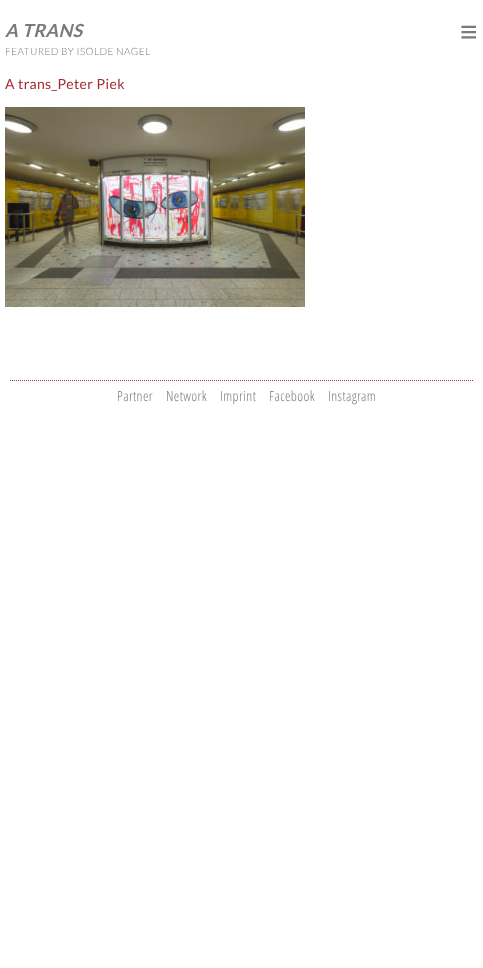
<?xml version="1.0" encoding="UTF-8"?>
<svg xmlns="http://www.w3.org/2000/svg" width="483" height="968">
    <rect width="100%" height="100%" fill="#FFFFFF"/>
    <text x="5" y="37" font-family="Lato" font-size="18" font-weight="700" font-style="italic" letter-spacing="0.4" fill="#7A7A7A">A TRANS</text>
    <text x="5" y="55" font-family="Lato" font-size="10" font-weight="300" letter-spacing="0.4" fill="#7A7A7A">FEATURED BY ISOLDE NAGEL</text>
    <text x="460" y="42" font-family="Liberation Sans" font-size="30" letter-spacing="0.4" fill="#7A7A7A">≡</text>
    <text x="5" y="89" font-family="Lato" font-size="14" letter-spacing="0.4" fill="#A32A31">A trans_Peter Piek</text>
    <image x="5" y="107" width="300" height="200" href="img_01.png"/>
    <path d="M 10 380.5 H 473" fill="none" stroke="#A32A31" stroke-dasharray="1 1"/>
    <text x="117" y="401" font-family="Open Sans Condensed" font-size="14" font-weight="300" letter-spacing="0.4" fill="#7A7A7A">Partner</text>
    <text x="166" y="401" font-family="Open Sans Condensed" font-size="14" font-weight="300" letter-spacing="0.4" fill="#7A7A7A">Network</text>
    <text x="220" y="401" font-family="Open Sans Condensed" font-size="14" font-weight="300" letter-spacing="0.4" fill="#7A7A7A">Imprint</text>
    <text x="269" y="401" font-family="Open Sans Condensed" font-size="14" font-weight="300" letter-spacing="0.4" fill="#7A7A7A">Facebook</text>
    <text x="328" y="401" font-family="Open Sans Condensed" font-size="14" font-weight="300" letter-spacing="0.4" fill="#7A7A7A">Instagram</text>
</svg>
